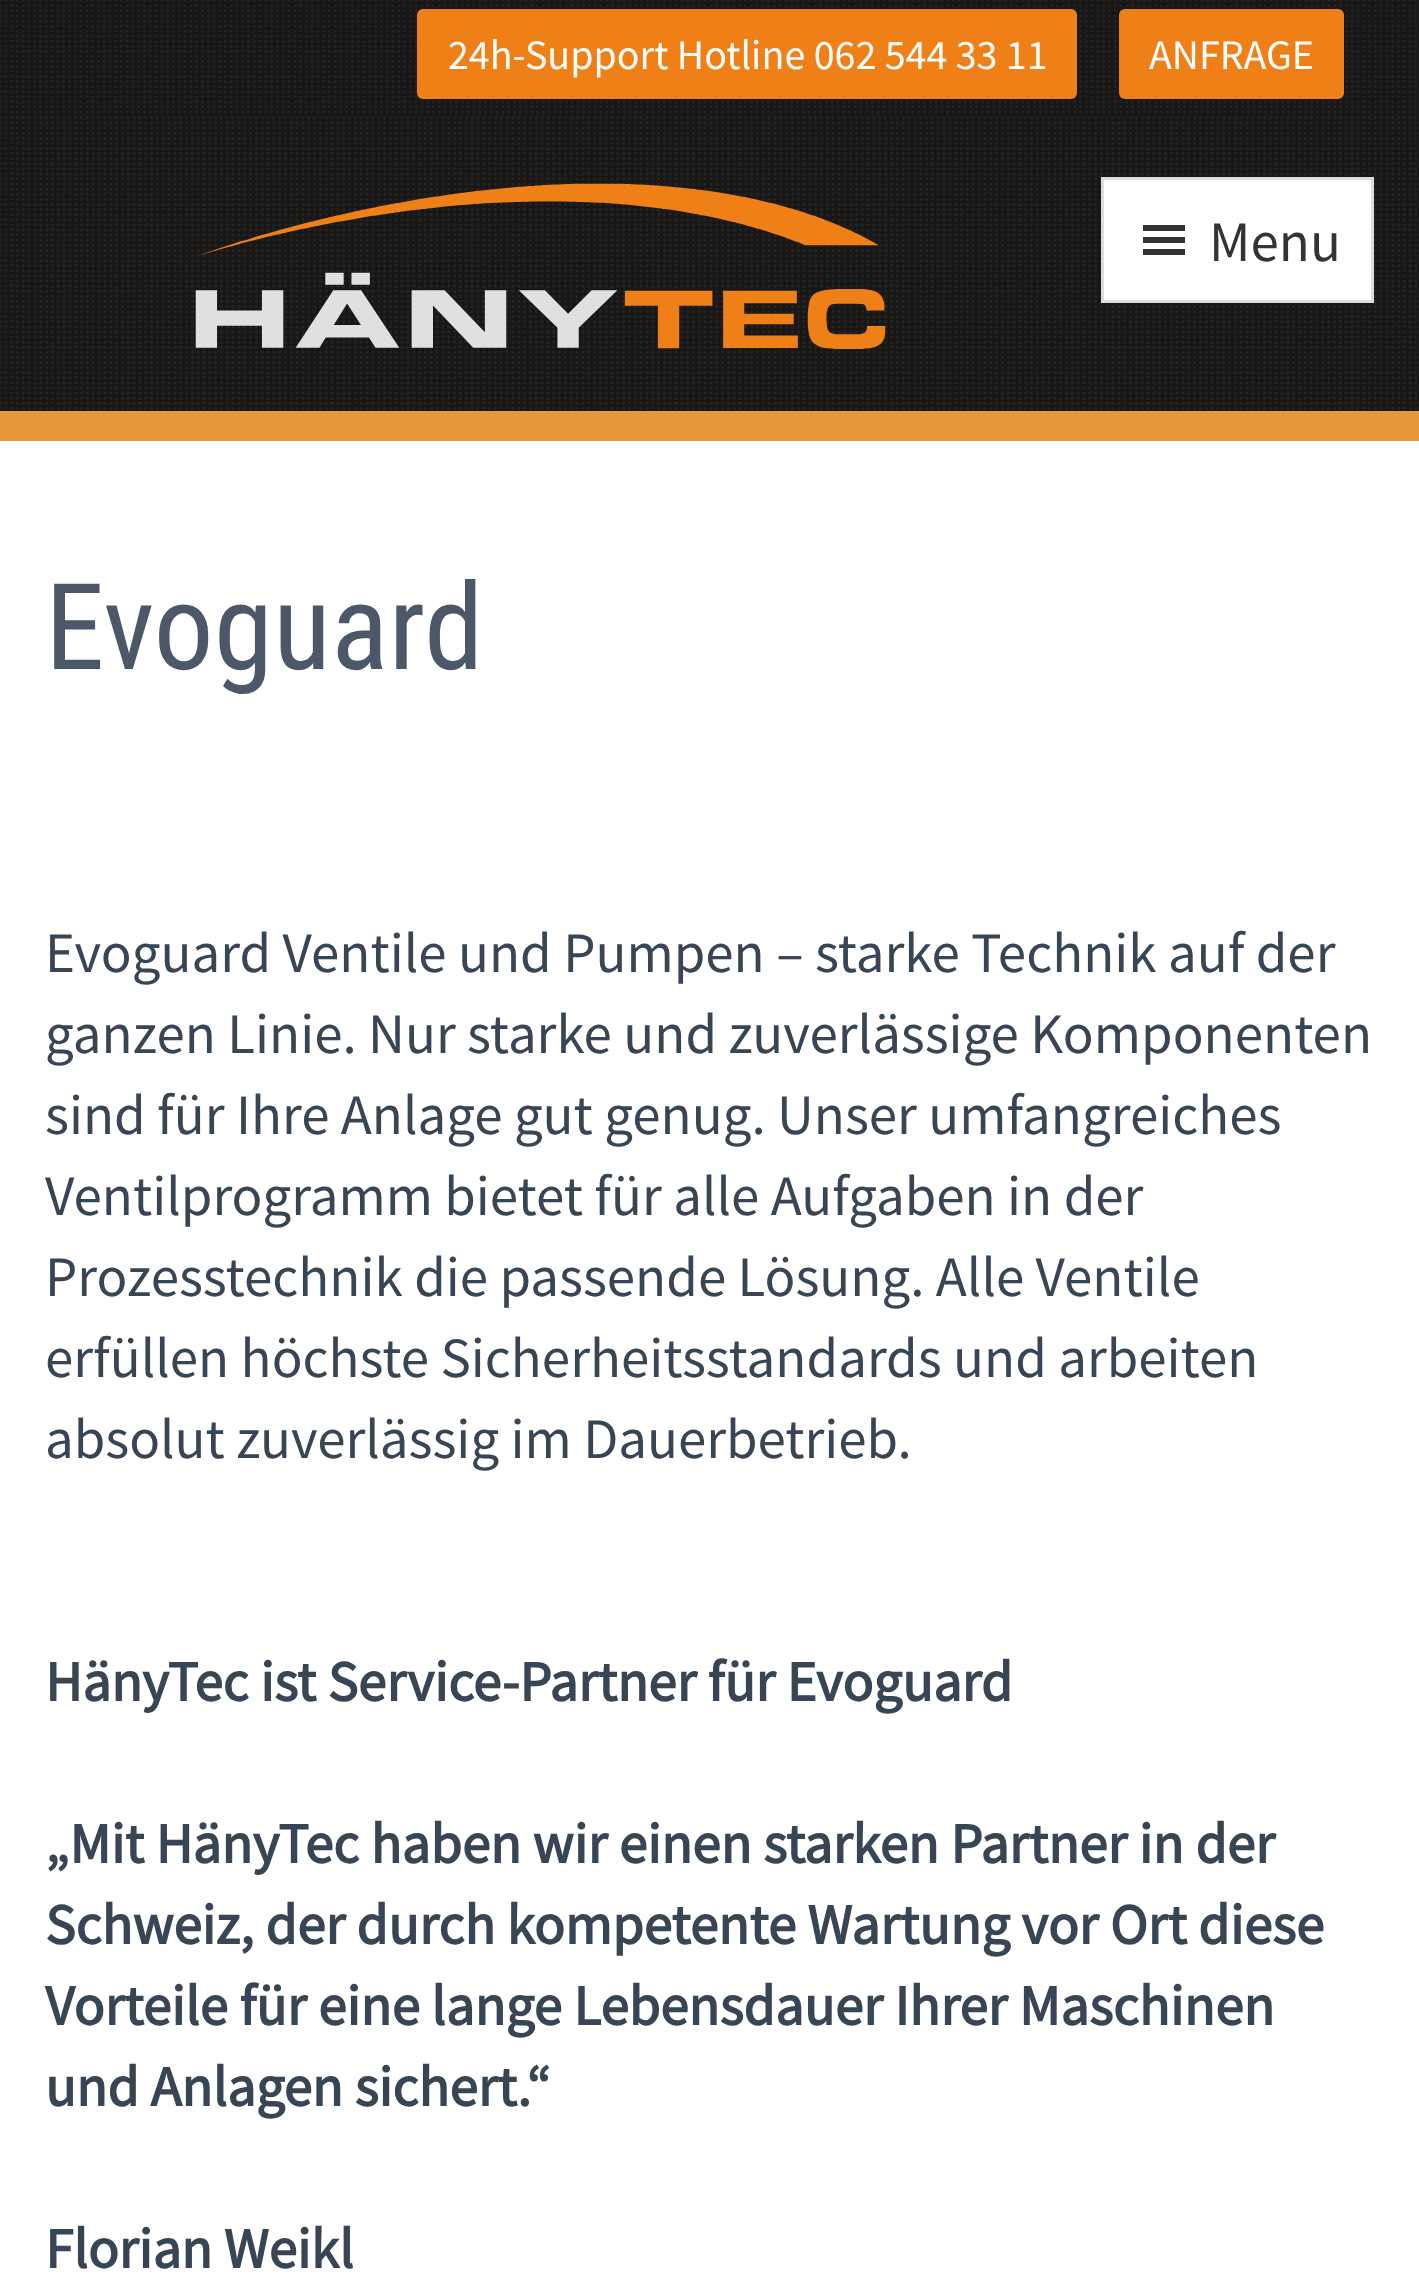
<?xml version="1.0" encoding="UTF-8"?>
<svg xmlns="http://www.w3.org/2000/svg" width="1419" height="2286">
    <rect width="100%" height="100%" fill="#FFFFFF"/>
    <image x="0" y="0" width="1419" height="117" href="img_01.png"/>
    <rect x="417" y="9" width="660" height="90" rx="6" fill="#EF8018"/>
    <text x="448" y="69" font-family="Source Sans Pro" font-size="42" fill="#FFFFFF">24h-Support Hotline 062 544 33 11</text>
    <rect x="1119" y="9" width="225" height="90" rx="6" fill="#EF8018"/>
    <text x="1149" y="69" font-family="Source Sans Pro" font-size="42" fill="#FFFFFF">ANFRAGE</text>
    <image x="0" y="117" width="1419" height="294" href="img_02.png"/>
    <rect x="0" y="411" width="1419" height="30" fill="#E89739"/>
    <image x="195" y="183" width="691" height="166" href="img_03.png"/>
    <rect x="1102.5" y="178.5" width="270" height="123" fill="#FFFFFF" stroke="#DDDDDD" stroke-width="3"/>
    <path d="M 1143 255 H 1185 V 249 H 1143 Z M 1143 225 V 231 H 1185 V 225 Z M 1143 243 H 1185 V 237 H 1143 Z" fill="#333333"/>
    <text x="1209" y="261" font-family="Source Sans Pro" font-size="57" fill="#333333">Menu</text>
    <text x="45" y="669" font-family="Roboto Condensed" font-size="120" fill="#4C5867">Evoguard</text>
    <text font-family="Source Sans Pro" font-size="57" fill="#384554">
        <tspan x="45" y="972">Evoguard Ventile und Pumpen – starke Technik auf der</tspan>
        <tspan x="45" y="1053">ganzen Linie. Nur starke und zuverlässige Komponenten</tspan>
        <tspan x="45" y="1134">sind für Ihre Anlage gut genug. Unser umfangreiches</tspan>
        <tspan x="45" y="1215">Ventilprogramm bietet für alle Aufgaben in der</tspan>
        <tspan x="45" y="1296">Prozesstechnik die passende Lösung. Alle Ventile</tspan>
        <tspan x="45" y="1377">erfüllen höchste Sicherheitsstandards und arbeiten</tspan>
        <tspan x="45" y="1458">absolut zuverlässig im Dauerbetrieb.</tspan>
    </text>
    <text x="45" y="1701" font-family="Source Sans Pro" font-size="57" font-weight="700" fill="#384554">HänyTec ist Service-Partner für Evoguard</text>
    <text font-family="Source Sans Pro" font-size="57" font-weight="700" fill="#384554">
        <tspan x="45" y="1863">„Mit HänyTec haben wir einen starken Partner in der</tspan>
        <tspan x="45" y="1944">Schweiz, der durch kompetente Wartung vor Ort diese</tspan>
        <tspan x="45" y="2025">Vorteile für eine lange Lebensdauer Ihrer Maschinen</tspan>
        <tspan x="45" y="2106">und Anlagen sichert.“</tspan>
    </text>
    <text x="45" y="2268" font-family="Source Sans Pro" font-size="57" font-weight="700" fill="#384554">Florian Weikl</text>
</svg>
